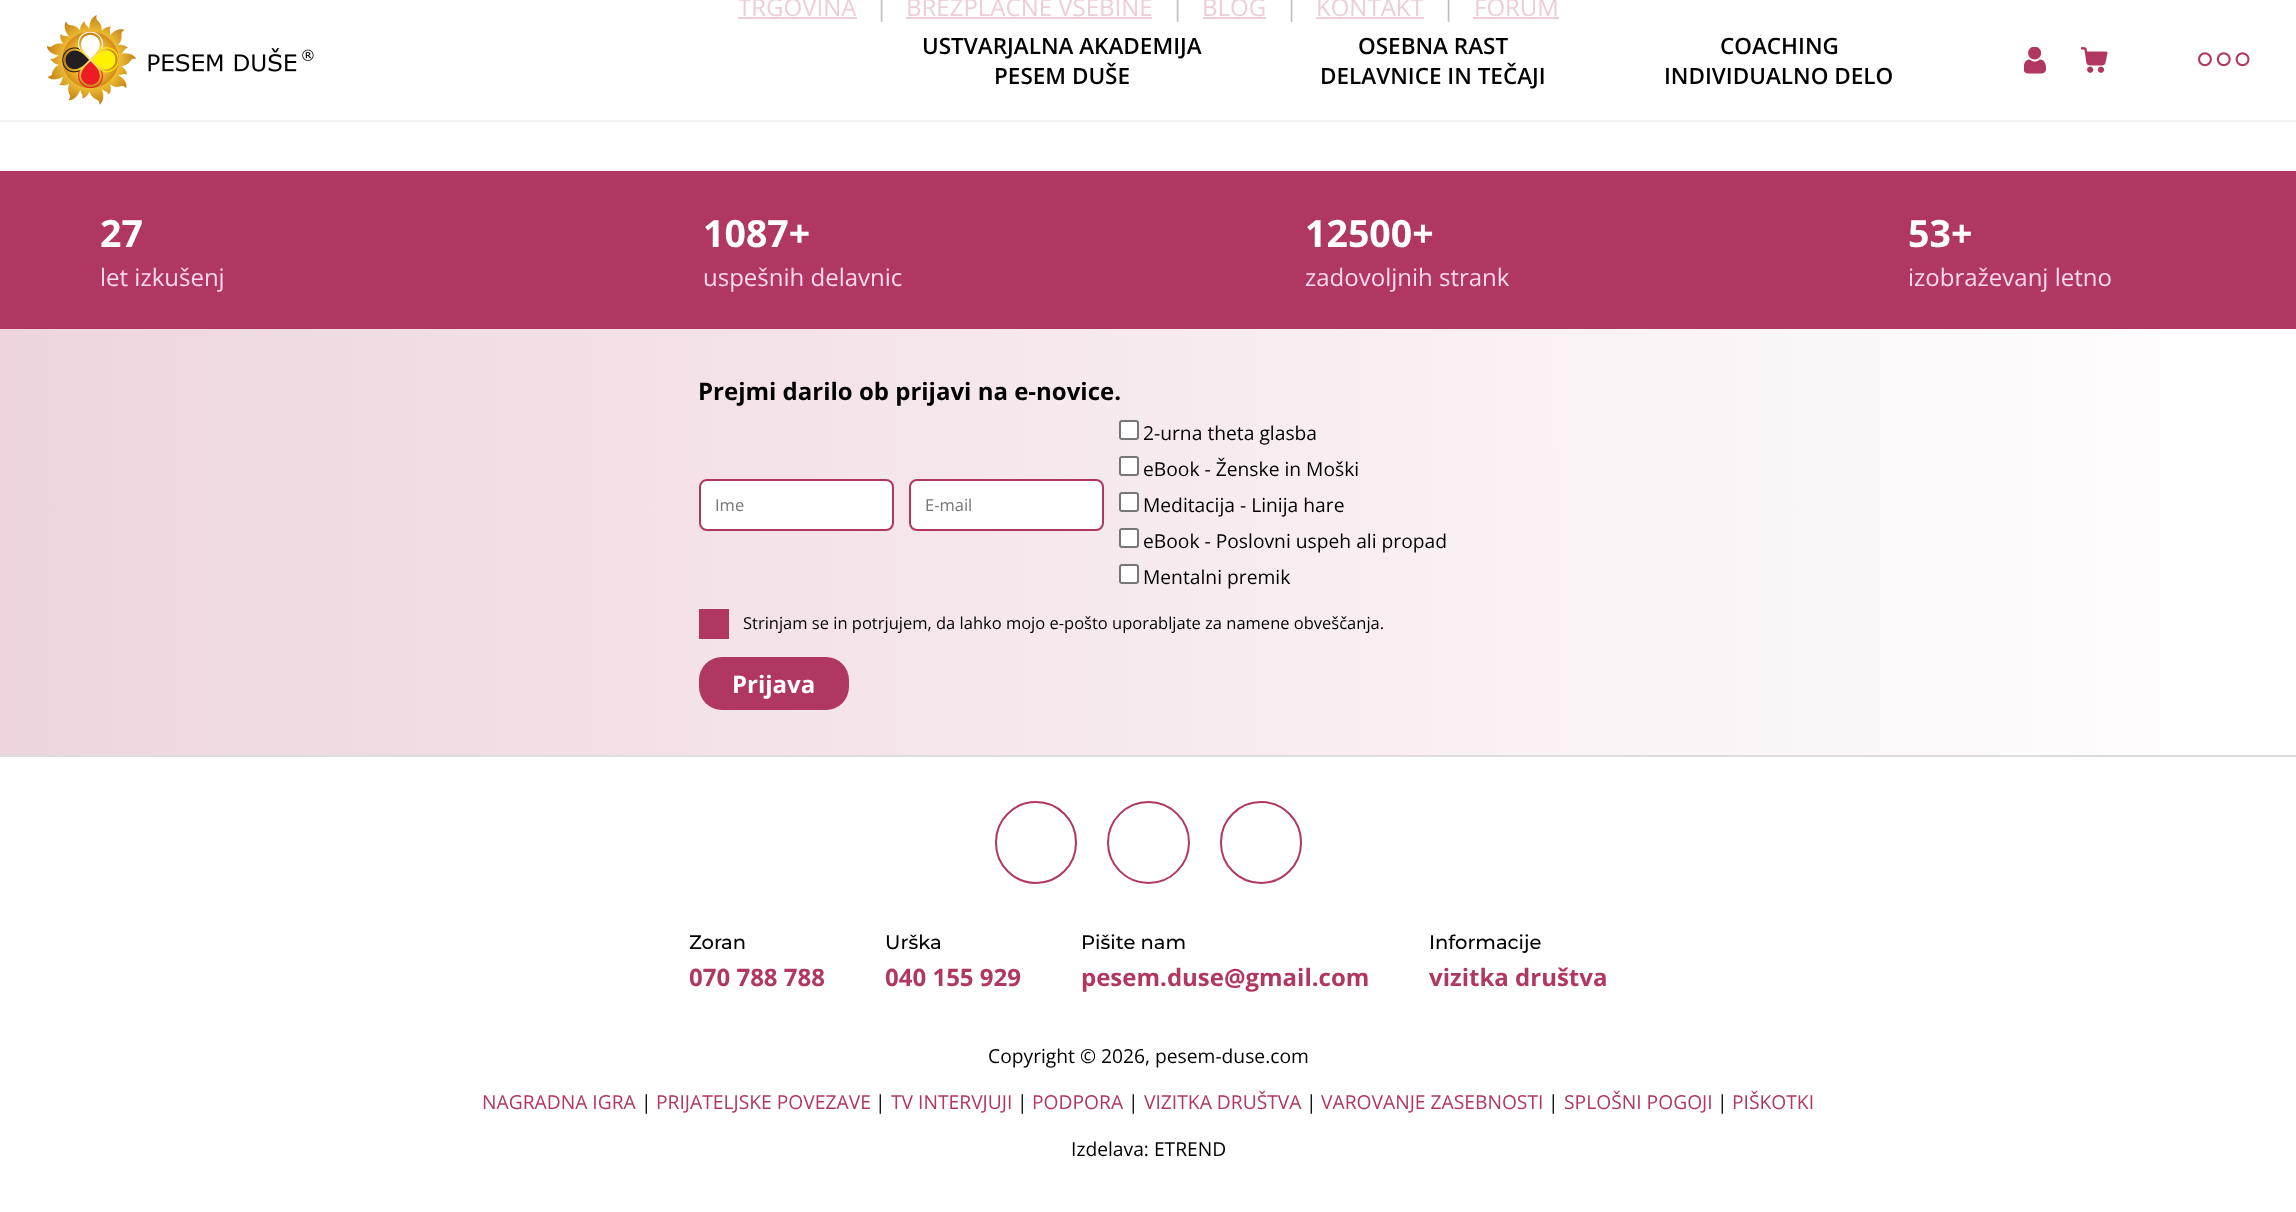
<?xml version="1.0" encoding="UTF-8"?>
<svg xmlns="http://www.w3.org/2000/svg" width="2296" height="1212">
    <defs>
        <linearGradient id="g1" gradientUnits="userSpaceOnUse" x1="0" y1="542" x2="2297" y2="541"><stop offset="0" stop-color="#EED5DD"/><stop offset="1" stop-color="#FFFFFF"/></linearGradient>
    </defs>
    <rect width="100%" height="100%" fill="#FFFFFF"/>
    <text x="738" y="16" font-family="Open Sans" font-size="24" fill="#ECCDD8">TRGOVINA</text>
    <rect x="738" y="17" width="119" height="2" fill="#ECCDD8"/>
    <text x="875" y="16" font-family="Open Sans" font-size="24" fill="#BFBFBF">|</text>
    <text x="906" y="16" font-family="Open Sans" font-size="24" fill="#ECCDD8">BREZPLAČNE VSEBINE</text>
    <rect x="906" y="17" width="246" height="2" fill="#ECCDD8"/>
    <text x="1171" y="16" font-family="Open Sans" font-size="24" fill="#BFBFBF">|</text>
    <text x="1202" y="16" font-family="Open Sans" font-size="24" fill="#ECCDD8">BLOG</text>
    <rect x="1203" y="17" width="63" height="2" fill="#ECCDD8"/>
    <text x="1285" y="16" font-family="Open Sans" font-size="24" fill="#BFBFBF">|</text>
    <text x="1316" y="16" font-family="Open Sans" font-size="24" fill="#ECCDD8">KONTAKT</text>
    <rect x="1316" y="17" width="108" height="2" fill="#ECCDD8"/>
    <text x="1442" y="16" font-family="Open Sans" font-size="24" fill="#BFBFBF">|</text>
    <text x="1474" y="16" font-family="Open Sans" font-size="24" fill="#ECCDD8">FORUM</text>
    <rect x="1473" y="17" width="86" height="2" fill="#ECCDD8"/>
    <rect x="0" y="120" width="2296" height="2" fill="#F2F2F2"/>
    <image x="47" y="15" width="267" height="90" href="img_01.png"/>
    <text x="922" y="54" font-family="Open Sans" font-size="22.5" font-weight="600" fill="#000000">USTVARJALNA AKADEMIJA</text>
    <text x="994" y="84" font-family="Open Sans" font-size="22.5" font-weight="600" fill="#000000">PESEM DUŠE</text>
    <text x="1358" y="54" font-family="Open Sans" font-size="22.5" font-weight="600" fill="#000000">OSEBNA RAST</text>
    <text x="1320" y="84" font-family="Open Sans" font-size="22.5" font-weight="600" fill="#000000">DELAVNICE IN TEČAJI</text>
    <text x="1720" y="54" font-family="Open Sans" font-size="22.5" font-weight="600" fill="#000000">COACHING</text>
    <text x="1664" y="84" font-family="Open Sans" font-size="22.5" font-weight="600" fill="#000000">INDIVIDUALNO DELO</text>
    <image x="2024" y="47" width="22" height="27" href="img_02.png"/>
    <image x="2081" y="47" width="27" height="26" href="img_03.png"/>
    <image x="2198" y="52" width="52" height="15" href="img_04.png"/>
    <rect x="0" y="171" width="2296" height="158" fill="#B13763"/>
    <text x="100" y="247" font-family="Open Sans" font-size="37.5" font-weight="700" fill="#FFFFFF">27</text>
    <text x="100" y="286" font-family="Open Sans" font-size="24" fill="#FFD8F1">let izkušenj</text>
    <text x="703" y="247" font-family="Open Sans" font-size="37.5" font-weight="700" fill="#FFFFFF">1087+</text>
    <text x="703" y="286" font-family="Open Sans" font-size="24" fill="#FFD8F1">uspešnih delavnic</text>
    <text x="1305" y="247" font-family="Open Sans" font-size="37.5" font-weight="700" fill="#FFFFFF">12500+</text>
    <text x="1305" y="286" font-family="Open Sans" font-size="24" fill="#FFD8F1">zadovoljnih strank</text>
    <text x="1908" y="247" font-family="Open Sans" font-size="37.5" font-weight="700" fill="#FFFFFF">53+</text>
    <text x="1908" y="286" font-family="Open Sans" font-size="24" fill="#FFD8F1">izobraževanj letno</text>
    <rect x="0" y="329" width="2160" height="426" fill="url(#g1)"/>
    <text x="698" y="400" font-family="Open Sans" font-size="24" font-weight="700" fill="#000000">Prejmi darilo ob prijavi na e-novice.</text>
    <rect x="700" y="480" width="193" height="50" rx="7" fill="#FFFFFF" stroke="#B13763" stroke-width="2"/>
    <text x="715" y="511" font-family="Open Sans" font-size="16.5" fill="#757575">Ime</text>
    <rect x="910" y="480" width="193" height="50" rx="7" fill="#FFFFFF" stroke="#B13763" stroke-width="2"/>
    <text x="925" y="511" font-family="Open Sans" font-size="16.5" fill="#757575">E-mail</text>
    <rect x="1120" y="421" width="18" height="18" rx="2" fill="#FFFFFF" stroke="#767676" stroke-width="2"/>
    <text x="1143" y="440" font-family="Open Sans" font-size="19.25" fill="#000000">2-urna theta glasba</text>
    <rect x="1120" y="457" width="18" height="18" rx="2" fill="#FFFFFF" stroke="#767676" stroke-width="2"/>
    <text x="1143" y="476" font-family="Open Sans" font-size="19.25" fill="#000000">eBook - Ženske in Moški</text>
    <rect x="1120" y="493" width="18" height="18" rx="2" fill="#FFFFFF" stroke="#767676" stroke-width="2"/>
    <text x="1143" y="512" font-family="Open Sans" font-size="19.25" fill="#000000">Meditacija - Linija hare</text>
    <rect x="1120" y="529" width="18" height="18" rx="2" fill="#FFFFFF" stroke="#767676" stroke-width="2"/>
    <text x="1143" y="548" font-family="Open Sans" font-size="19.25" fill="#000000">eBook - Poslovni uspeh ali propad</text>
    <rect x="1120" y="565" width="18" height="18" rx="2" fill="#FFFFFF" stroke="#767676" stroke-width="2"/>
    <text x="1143" y="584" font-family="Open Sans" font-size="19.25" fill="#000000">Mentalni premik</text>
    <rect x="699" y="609" width="30" height="30" fill="#B13763"/>
    <text x="743" y="629" font-family="Open Sans" font-size="16.5" fill="#000000">Strinjam se in potrjujem, da lahko mojo e-pošto uporabljate za namene obveščanja.</text>
    <rect x="699" y="657" width="150" height="53" rx="23" fill="#B13763"/>
    <text x="732" y="693" font-family="Open Sans" font-size="24" font-weight="700" fill="#FFFFFF">Prijava</text>
    <rect x="0" y="755" width="2296" height="2" fill="#DDDDDD"/>
    <rect x="996" y="802" width="80" height="81" rx="40" fill="none" stroke="#B13763" stroke-width="2"/>
    <circle cx="1148.5" cy="842.5" r="40.5" fill="none" stroke="#B13763" stroke-width="2"/>
    <rect x="1221" y="802" width="80" height="81" rx="40" fill="none" stroke="#B13763" stroke-width="2"/>
    <text x="689" y="949" font-family="Montserrat" font-size="19.5" font-weight="500" fill="#000000">Zoran</text>
    <text x="689" y="986" font-family="Open Sans" font-size="24" font-weight="700" fill="#B13763">070 788 788</text>
    <text x="885" y="949" font-family="Montserrat" font-size="19.5" font-weight="500" fill="#000000">Urška</text>
    <text x="885" y="986" font-family="Open Sans" font-size="24" font-weight="700" fill="#B13763">040 155 929</text>
    <text x="1081" y="949" font-family="Montserrat" font-size="19.5" font-weight="500" fill="#000000">Pišite nam</text>
    <text x="1081" y="986" font-family="Open Sans" font-size="24" font-weight="700" fill="#B13763">pesem.duse@gmail.com</text>
    <text x="1429" y="949" font-family="Montserrat" font-size="19.5" font-weight="500" fill="#000000">Informacije</text>
    <text x="1429" y="986" font-family="Open Sans" font-size="24" font-weight="700" fill="#B13763">vizitka društva</text>
    <text x="988" y="1063" font-family="Open Sans" font-size="19.25" fill="#000000">Copyright © 2026, pesem-duse.com</text>
    <text x="482" y="1109" font-family="Open Sans" font-size="19.25" fill="#B13763">NAGRADNA IGRA</text>
    <text x="641" y="1109" font-family="Open Sans" font-size="19.25" fill="#000000">|</text>
    <text x="656" y="1109" font-family="Open Sans" font-size="19.25" fill="#B13763">PRIJATELJSKE POVEZAVE</text>
    <text x="875" y="1109" font-family="Open Sans" font-size="19.25" fill="#000000">|</text>
    <text x="891" y="1109" font-family="Open Sans" font-size="19.25" fill="#B13763">TV INTERVJUJI</text>
    <text x="1017" y="1109" font-family="Open Sans" font-size="19.25" fill="#000000">|</text>
    <text x="1032" y="1109" font-family="Open Sans" font-size="19.25" fill="#B13763">PODPORA</text>
    <text x="1128" y="1109" font-family="Open Sans" font-size="19.25" fill="#000000">|</text>
    <text x="1144" y="1109" font-family="Open Sans" font-size="19.25" fill="#B13763">VIZITKA DRUŠTVA</text>
    <text x="1306" y="1109" font-family="Open Sans" font-size="19.25" fill="#000000">|</text>
    <text x="1321" y="1109" font-family="Open Sans" font-size="19.25" fill="#B13763">VAROVANJE ZASEBNOSTI</text>
    <text x="1548" y="1109" font-family="Open Sans" font-size="19.25" fill="#000000">|</text>
    <text x="1564" y="1109" font-family="Open Sans" font-size="19.25" fill="#B13763">SPLOŠNI POGOJI</text>
    <text x="1717" y="1109" font-family="Open Sans" font-size="19.25" fill="#000000">|</text>
    <text x="1732" y="1109" font-family="Open Sans" font-size="19.25" fill="#B13763">PIŠKOTKI</text>
    <text x="1071" y="1156" font-family="Open Sans" font-size="19.25" fill="#000000">Izdelava: ETREND</text>
</svg>
